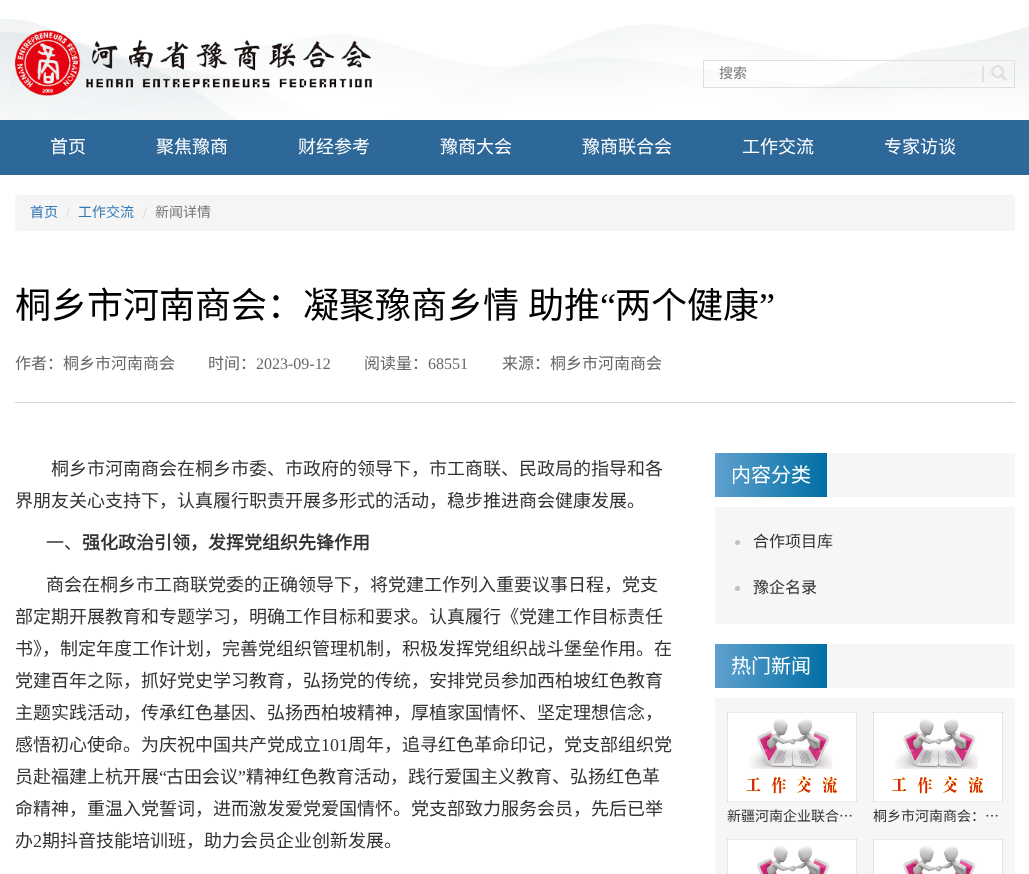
<?xml version="1.0" encoding="UTF-8"?>
<svg xmlns="http://www.w3.org/2000/svg" width="1029" height="874">
    <defs>
        <linearGradient id="g1" gradientUnits="userSpaceOnUse" x1="715" y1="475" x2="827" y2="475"><stop offset="0" stop-color="#5FA1CE"/><stop offset="1" stop-color="#006EA4"/></linearGradient>
        <linearGradient id="g2" gradientUnits="userSpaceOnUse" x1="715" y1="666" x2="827" y2="666"><stop offset="0" stop-color="#5FA1CE"/><stop offset="1" stop-color="#006EA4"/></linearGradient>
    </defs>
    <rect width="100%" height="100%" fill="#FFFFFF"/>
    <image x="0" y="19" width="1029" height="101" href="img_01.png"/>
    <image x="15" y="30" width="357" height="66" href="img_02.png"/>
    <rect x="703.5" y="60.5" width="311" height="27" fill="none" stroke="#E0E0E0"/>
    <text x="719" y="78" font-family="Noto Sans CJK SC" font-size="14" fill="#777777">搜索</text>
    <rect x="982" y="66" width="2" height="16" fill="#E0E0E0"/>
    <image x="991" y="65" width="16" height="16" href="img_03.png"/>
    <rect x="0" y="120" width="1029" height="55" fill="#2D6899"/>
    <text x="50" y="153" font-family="Noto Sans CJK SC" font-size="18" fill="#FFFFFF">首页</text>
    <text x="156" y="153" font-family="Noto Sans CJK SC" font-size="18" fill="#FFFFFF">聚焦豫商</text>
    <text x="298" y="153" font-family="Noto Sans CJK SC" font-size="18" fill="#FFFFFF">财经参考</text>
    <text x="440" y="153" font-family="Noto Sans CJK SC" font-size="18" fill="#FFFFFF">豫商大会</text>
    <text x="582" y="153" font-family="Noto Sans CJK SC" font-size="18" fill="#FFFFFF">豫商联合会</text>
    <text x="742" y="153" font-family="Noto Sans CJK SC" font-size="18" fill="#FFFFFF">工作交流</text>
    <text x="884" y="153" font-family="Noto Sans CJK SC" font-size="18" fill="#FFFFFF">专家访谈</text>
    <rect x="15" y="195" width="1000" height="36" rx="4" fill="#F5F5F5"/>
    <text x="30" y="217" font-family="Noto Sans CJK SC" font-size="14" fill="#337AB7">首页</text>
    <text x="66" y="217" font-family="Liberation Serif" font-size="14" fill="#CCCCCC">/</text>
    <text x="78" y="217" font-family="Noto Sans CJK SC" font-size="14" fill="#337AB7">工作交流</text>
    <text x="143" y="217" font-family="Liberation Serif" font-size="14" fill="#CCCCCC">/</text>
    <text x="155" y="217" font-family="Noto Sans CJK SC" font-size="14" fill="#777777">新闻详情</text>
    <rect x="15" y="402" width="1000" height="1" fill="#D3D3D3"/>
    <text x="15" y="318" word-spacing="1" font-family="Noto Sans CJK SC" font-size="36" fill="#000000">桐乡市河南商会：凝聚豫商乡情 助推</text>
    <text x="600" y="318" font-family="Liberation Serif" font-size="36" fill="#000000">“</text>
    <text x="615" y="318" font-family="Noto Sans CJK SC" font-size="36" fill="#000000">两个健康</text>
    <text x="759" y="318" font-family="Liberation Serif" font-size="36" fill="#000000">”</text>
    <text x="15" y="369" font-family="Noto Sans CJK SC" font-size="16" fill="#666666">作者：桐乡市河南商会</text>
    <text x="208" y="369" font-family="Noto Sans CJK SC" font-size="16" fill="#666666">时间：</text>
    <text x="256" y="369" font-family="Liberation Serif" font-size="16" fill="#666666">2023-09-12</text>
    <text x="364" y="369" font-family="Noto Sans CJK SC" font-size="16" fill="#666666">阅读量：</text>
    <text x="428" y="369" font-family="Liberation Serif" font-size="16" fill="#666666">68551</text>
    <text x="502" y="369" font-family="Noto Sans CJK SC" font-size="16" fill="#666666">来源：桐乡市河南商会</text>
    <text x="51" y="475" font-family="Noto Sans CJK SC" font-size="18" fill="#333333">桐乡市河南商会在桐乡市委、市政府的领导下，市工商联、民政局的指导和各</text>
    <text x="15" y="507" font-family="Noto Sans CJK SC" font-size="18" fill="#333333">界朋友关心支持下，认真履行职责开展多形式的活动，稳步推进商会健康发展。</text>
    <text x="46" y="549" font-family="Noto Sans CJK SC" font-size="18" fill="#333333">一、</text>
    <text x="82" y="549" font-family="Noto Sans CJK SC" font-size="18" font-weight="700" fill="#333333">强化政治引领，发挥党组织先锋作用</text>
    <text x="46" y="591" font-family="Noto Sans CJK SC" font-size="18" fill="#333333">商会在桐乡市工商联党委的正确领导下，将党建工作列入重要议事日程，党支</text>
    <text font-family="Noto Sans CJK SC" font-size="18" fill="#333333">
        <tspan x="15" y="623">部定期开展教育和专题学习，明确工作目标和要求。认真履行《党建工作目标责任</tspan>
        <tspan x="15" y="655">书》，制定年度工作计划，完善党组织管理机制，积极发挥党组织战斗堡垒作用。在</tspan>
        <tspan x="15" y="687">党建百年之际，抓好党史学习教育，弘扬党的传统，安排党员参加西柏坡红色教育</tspan>
        <tspan x="15" y="719">主题实践活动，传承红色基因、弘扬西柏坡精神，厚植家国情怀、坚定理想信念，</tspan>
        <tspan x="15" y="751">感悟初心使命。为庆祝中国共产党成立</tspan>
    </text>
    <text x="321" y="751" font-family="Liberation Serif" font-size="18" fill="#333333">101</text>
    <text x="348" y="751" font-family="Noto Sans CJK SC" font-size="18" fill="#333333">周年，追寻红色革命印记，党支部组织党</text>
    <text x="15" y="783" font-family="Noto Sans CJK SC" font-size="18" fill="#333333">员赴福建上杭开展</text>
    <text x="159" y="783" font-family="Liberation Serif" font-size="18" fill="#333333">“</text>
    <text x="166" y="783" font-family="Noto Sans CJK SC" font-size="18" fill="#333333">古田会议</text>
    <text x="238" y="783" font-family="Liberation Serif" font-size="18" fill="#333333">”</text>
    <text x="246" y="783" font-family="Noto Sans CJK SC" font-size="18" fill="#333333">精神红色教育活动，践行爱国主义教育、弘扬红色革</text>
    <text font-family="Noto Sans CJK SC" font-size="18" fill="#333333">
        <tspan x="15" y="815">命精神，重温入党誓词，进而激发爱党爱国情怀。党支部致力服务会员，先后已举</tspan>
        <tspan x="15" y="847">办</tspan>
    </text>
    <text x="33" y="847" font-family="Liberation Serif" font-size="18" fill="#333333">2</text>
    <text x="42" y="847" font-family="Noto Sans CJK SC" font-size="18" fill="#333333">期抖音技能培训班，助力会员企业创新发展。</text>
    <rect x="827" y="453" width="188" height="44" fill="#F6F6F6"/>
    <rect x="715" y="453" width="112" height="44" fill="url(#g1)"/>
    <text x="731" y="482" font-family="Noto Sans CJK SC" font-size="20" fill="#FFFFFF">内容分类</text>
    <rect x="715" y="507" width="300" height="117" fill="#F6F6F6"/>
    <circle cx="737.5" cy="542.5" r="2.5" fill="#BFBFBF"/>
    <text x="753" y="547" font-family="Noto Sans CJK SC" font-size="16" fill="#333333">合作项目库</text>
    <circle cx="737.5" cy="588.5" r="2.5" fill="#BFBFBF"/>
    <text x="753" y="593" font-family="Noto Sans CJK SC" font-size="16" fill="#333333">豫企名录</text>
    <rect x="827" y="644" width="188" height="44" fill="#F6F6F6"/>
    <rect x="715" y="644" width="112" height="44" fill="url(#g2)"/>
    <text x="731" y="673" font-family="Noto Sans CJK SC" font-size="20" fill="#FFFFFF">热门新闻</text>
    <rect x="715" y="698" width="300" height="176" fill="#F6F6F6"/>
    <image x="727" y="712" width="130" height="90" href="img_04.png"/>
    <text x="727" y="821" font-family="Noto Sans CJK SC" font-size="14" fill="#333333">新疆河南企业联合…</text>
    <image x="873" y="712" width="130" height="90" href="img_05.png"/>
    <text x="873" y="821" font-family="Noto Sans CJK SC" font-size="14" fill="#333333">桐乡市河南商会：…</text>
    <image x="727" y="839" width="130" height="35" href="img_06.png"/>
    <image x="873" y="839" width="130" height="35" href="img_07.png"/>
</svg>
